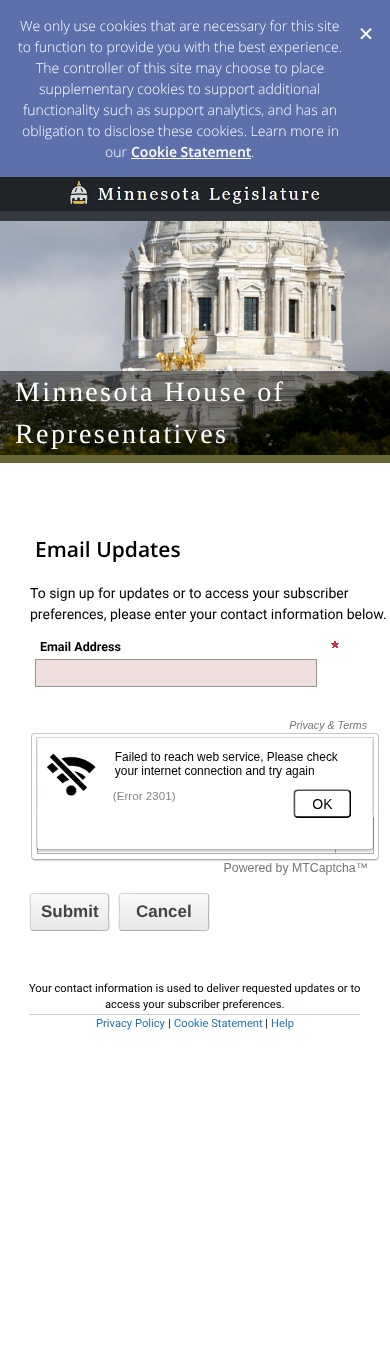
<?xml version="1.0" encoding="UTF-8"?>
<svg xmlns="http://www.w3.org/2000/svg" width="390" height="1360">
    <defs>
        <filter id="blur1" x="-50%" y="-200%" width="200%" height="500%"><feGaussianBlur stdDeviation="2.5"/></filter>
        <clipPath id="clip1"><rect x="30" y="893" width="79" height="38" rx="3"/></clipPath>
        <linearGradient id="g1" gradientUnits="userSpaceOnUse" x1="70" y1="894" x2="70" y2="930"><stop offset="0" stop-color="#F9F9F9"/><stop offset="1" stop-color="#E8E8E8"/></linearGradient>
        <clipPath id="clip2"><rect x="119" y="893" width="90" height="38" rx="3"/></clipPath>
        <linearGradient id="g2" gradientUnits="userSpaceOnUse" x1="164" y1="894" x2="164" y2="930"><stop offset="0" stop-color="#F9F9F9"/><stop offset="1" stop-color="#E8E8E8"/></linearGradient>
    </defs>
    <rect width="100%" height="100%" fill="#FFFFFF"/>
    <rect x="0" y="177" width="390" height="34" fill="#212529"/>
    <image x="70" y="180" width="250" height="25" href="img_02.png"/>
    <rect x="0" y="3" width="390" height="177" fill="#000000" fill-opacity="0.1" filter="url(#blur1)"/>
    <rect x="0" y="0" width="390" height="177" fill="#5E70AB"/>
    <text x="20" y="31" font-family="Open Sans" font-size="14" font-weight="300" fill="#FFFFFF">We only use cookies that are necessary for this site</text>
    <text x="18" y="52" font-family="Open Sans" font-size="14" font-weight="300" fill="#FFFFFF">to function to provide you with the best experience.</text>
    <text x="36" y="73" font-family="Open Sans" font-size="14" font-weight="300" fill="#FFFFFF">The controller of this site may choose to place</text>
    <text x="39" y="94" font-family="Open Sans" font-size="14" font-weight="300" fill="#FFFFFF">supplementary cookies to support additional</text>
    <text x="23" y="115" font-family="Open Sans" font-size="14" font-weight="300" fill="#FFFFFF">functionality such as support analytics, and has an</text>
    <text x="22" y="136" font-family="Open Sans" font-size="14" font-weight="300" fill="#FFFFFF">obligation to disclose these cookies. Learn more in</text>
    <text x="105" y="157" font-family="Open Sans" font-size="14" font-weight="300" fill="#FFFFFF">our</text>
    <text x="131" y="157" font-family="Open Sans" font-size="14" font-weight="600" fill="#FFFFFF">Cookie Statement</text>
    <rect x="131" y="158" width="120" height="1" fill="#FFFFFF"/>
    <text x="251" y="157" font-family="Open Sans" font-size="14" font-weight="300" fill="#FFFFFF">.</text>
    <image x="360" y="28" width="12" height="12" href="img_01.png"/>
    <rect x="0" y="211" width="390" height="10" fill="#343A40"/>
    <image x="0" y="221" width="390" height="234" href="img_03.png"/>
    <rect x="0" y="455" width="390" height="8" fill="#666633"/>
    <rect x="0" y="371" width="390" height="84" fill="#000000" fill-opacity="0.5"/>
    <text font-family="Liberation Serif" font-size="28" letter-spacing="2.4" fill="#FFFFFF">
        <tspan x="15" y="401">Minnesota House of</tspan>
        <tspan x="15" y="443">Representatives</tspan>
    </text>
    <text x="35" y="557" font-family="Open Sans" font-size="21" font-weight="600" fill="#000000">Email Updates</text>
    <text font-family="Roboto" font-size="14" fill="#000000">
        <tspan x="30" y="598">To sign up for updates or to access your subscriber</tspan>
        <tspan x="30" y="619">preferences, please enter your contact information below.</tspan>
    </text>
    <text x="40" y="651" font-family="Roboto" font-size="12.5" font-weight="700" fill="#000000">Email Address</text>
    <image x="331" y="641" width="8" height="7" href="img_04.png"/>
    <rect x="35.5" y="659.5" width="281" height="27" fill="#F0DDDD" stroke="#959595"/>
    <image x="31" y="721" width="348" height="154" href="img_05.png"/>
    <g clip-path="url(#clip1)">
        <rect x="30" y="894" width="79" height="36" fill="url(#g1)"/>
    </g>
    <path d="M 108 894 C 109.5 896 108.5 909 108.5 912 C 108.5 933 113 930.5 94 930.5 H 33 L 31 930" fill="none" stroke="#AAAAAA"/>
    <path d="M 31 930 C 29.5 928 30.5 915 30.5 912 C 30.5 891 26 893.5 45 893.5 H 106 L 108 894" fill="none" stroke="#CCCCCC"/>
    <text x="41" y="917" font-family="Liberation Sans" font-size="17" font-weight="700" fill="#444444">Submit</text>
    <g clip-path="url(#clip2)">
        <rect x="119" y="894" width="90" height="36" fill="url(#g2)"/>
    </g>
    <path d="M 208 894 C 209.5 896 208.5 909 208.5 912 C 208.5 934 213 930.5 192 930.5 H 122 L 120 930" fill="none" stroke="#AAAAAA"/>
    <path d="M 120 930 C 118.5 928 119.5 915 119.5 912 C 119.5 890 115 893.5 136 893.5 H 206 L 208 894" fill="none" stroke="#CCCCCC"/>
    <text x="136" y="917" font-family="Liberation Sans" font-size="17" font-weight="700" fill="#444444">Cancel</text>
    <text x="29" y="992" font-family="Roboto" font-size="11.2" fill="#000000">Your contact information is used to deliver requested updates or to</text>
    <text x="105" y="1008" font-family="Roboto" font-size="11.2" fill="#000000">access your subscriber preferences.</text>
    <rect x="30" y="1014" width="330" height="1" fill="#CCCCCC"/>
    <text x="96" y="1027" font-family="Roboto" font-size="11.2" fill="#2176AE">Privacy Policy</text>
    <text x="168" y="1027" font-family="Roboto" font-size="11.2" fill="#000000">|</text>
    <text x="174" y="1027" font-family="Roboto" font-size="11.2" fill="#2176AE">Cookie Statement</text>
    <text x="265" y="1027" font-family="Roboto" font-size="11.2" fill="#000000">|</text>
    <text x="271" y="1027" font-family="Roboto" font-size="11.2" fill="#2176AE">Help</text>
</svg>
